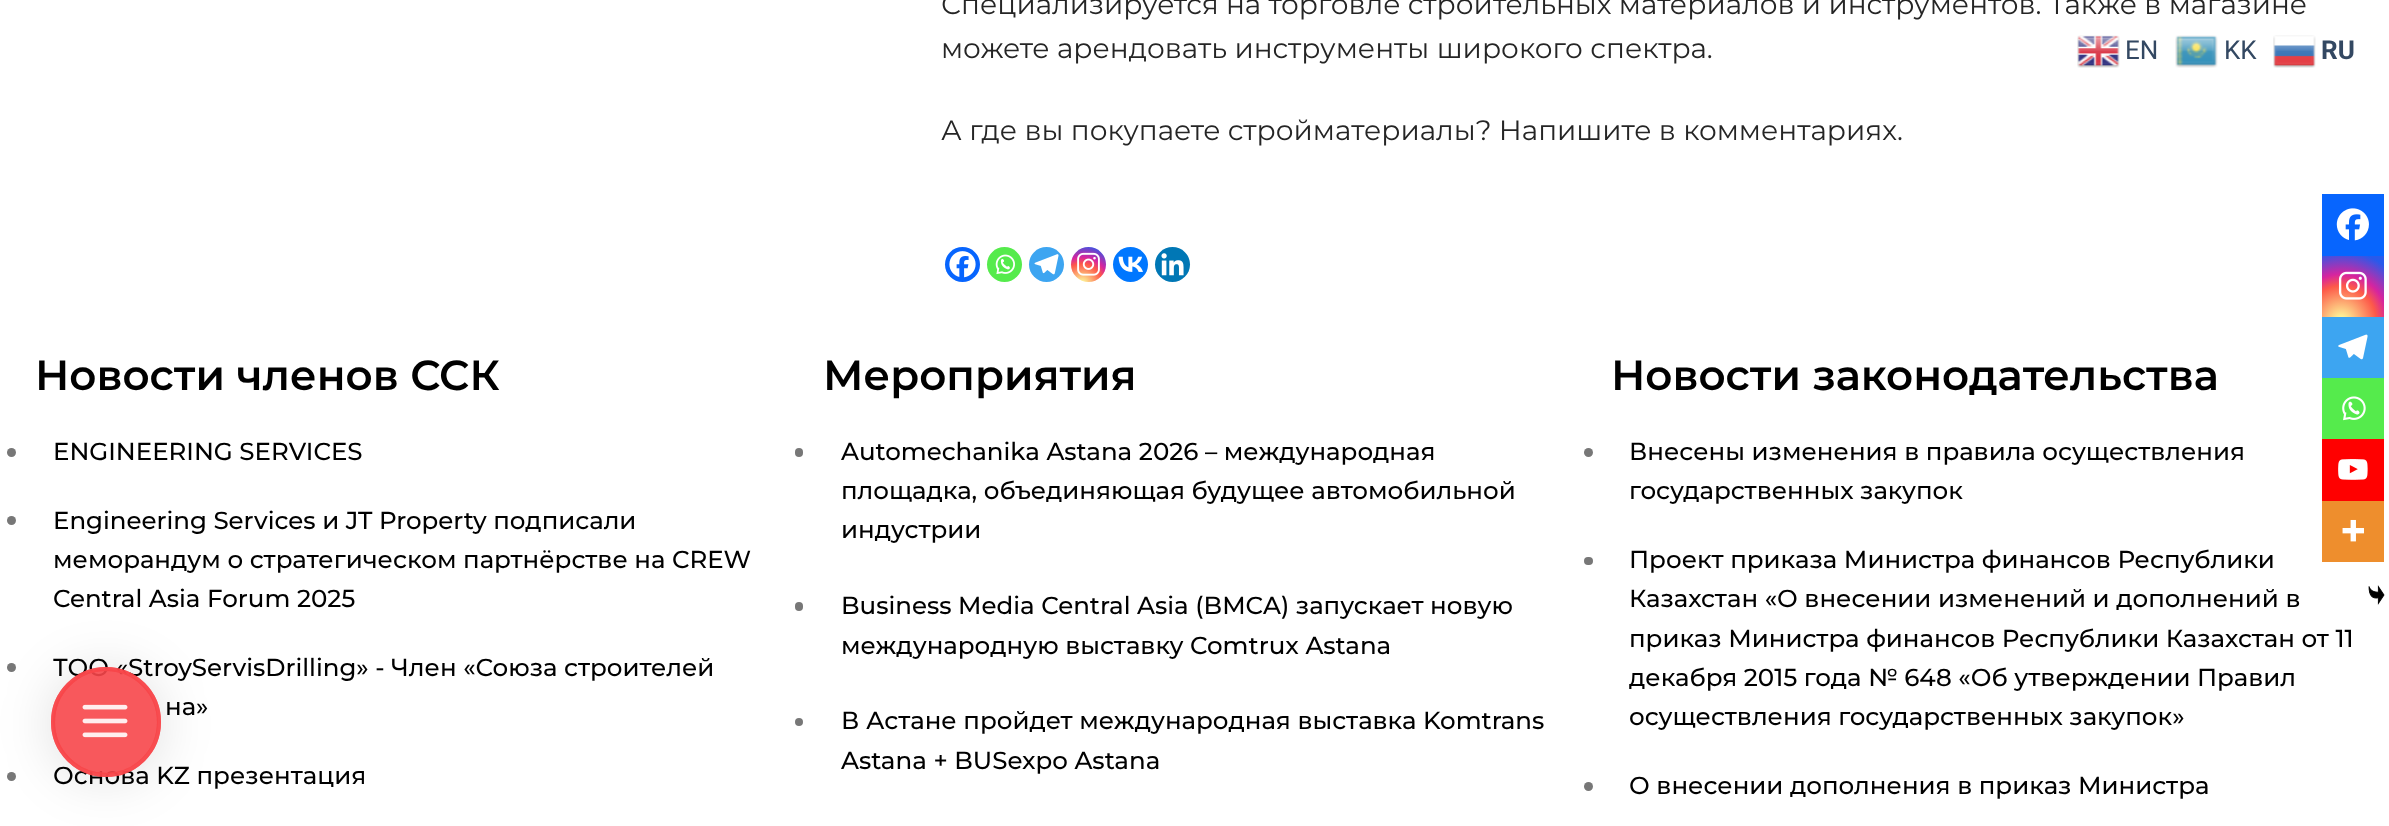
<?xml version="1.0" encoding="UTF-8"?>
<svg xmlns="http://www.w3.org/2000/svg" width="2389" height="826">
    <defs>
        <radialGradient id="g1" gradientUnits="userSpaceOnUse" cx="1082" cy="284" r="45"><stop offset="0" stop-color="#FDF497"/><stop offset="0.05" stop-color="#FDF497"/><stop offset="0.45" stop-color="#FD5949"/><stop offset="0.6" stop-color="#D6249F"/><stop offset="0.9" stop-color="#285AEB"/></radialGradient>
        <radialGradient id="g2" gradientUnits="userSpaceOnUse" cx="2341" cy="321" r="78"><stop offset="0" stop-color="#FDF497"/><stop offset="0.05" stop-color="#FDF497"/><stop offset="0.45" stop-color="#FD5949"/><stop offset="0.6" stop-color="#D6249F"/><stop offset="0.9" stop-color="#285AEB"/></radialGradient>
        <clipPath id="clip1"><path d="M 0 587 H 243 V 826 H 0 Z M 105.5 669 C 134.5 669 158 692.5 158 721.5 C 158 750.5 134.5 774 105.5 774 C 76.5 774 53 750.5 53 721.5 C 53 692.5 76.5 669 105.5 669 Z" clip-rule="evenodd"/></clipPath>
        <filter id="blur1" x="-50%" y="-200%" width="200%" height="500%"><feGaussianBlur stdDeviation="28"/></filter>
    </defs>
    <rect width="100%" height="100%" fill="#FFFFFF"/>
    <text font-family="Montserrat" font-size="28" fill="#252525">
        <tspan x="941" y="14">Специализируется на торговле строительных материалов и инструментов. Также в магазине</tspan>
        <tspan x="941" y="58">можете арендовать инструменты широкого спектра.</tspan>
    </text>
    <text x="941" y="140" font-family="Montserrat" font-size="28" fill="#252525">А где вы покупаете стройматериалы? Напишите в комментариях.</text>
    <circle cx="962.5" cy="264.5" r="17.5" fill="#0765FE"/>
    <image x="949" y="251" width="27" height="27" href="img_01.png"/>
    <circle cx="1004.5" cy="264.5" r="17.5" fill="#55EB4C"/>
    <image x="995" y="254" width="20" height="21" href="img_02.png"/>
    <circle cx="1046.5" cy="264.5" r="17.5" fill="#3DA5F1"/>
    <image x="1034" y="254" width="25" height="21" href="img_03.png"/>
    <circle cx="1088.5" cy="264.5" r="17.5" fill="url(#g1)"/>
    <image x="1077" y="252" width="23" height="24" href="img_04.png"/>
    <circle cx="1130.5" cy="264.5" r="17.5" fill="#0077FF"/>
    <image x="1118" y="256" width="25" height="16" href="img_05.png"/>
    <circle cx="1172.5" cy="264.5" r="17.5" fill="#0077B5"/>
    <image x="1161" y="253" width="23" height="23" href="img_06.png"/>
    <rect x="2322" y="194" width="62" height="62" fill="#0765FE"/>
    <image x="2336" y="208" width="33" height="33" href="img_07.png"/>
    <rect x="2322" y="256" width="62" height="61" fill="url(#g2)"/>
    <image x="2338" y="271" width="29" height="29" href="img_08.png"/>
    <rect x="2322" y="317" width="62" height="61" fill="#3DA5F1"/>
    <image x="2338" y="334" width="30" height="26" href="img_09.png"/>
    <rect x="2322" y="378" width="62" height="61" fill="#55EB4C"/>
    <image x="2342" y="396" width="24" height="25" href="img_10.png"/>
    <rect x="2322" y="439" width="62" height="62" fill="#FF0000"/>
    <image x="2338" y="459" width="30" height="21" href="img_11.png"/>
    <rect x="2322" y="501" width="62" height="61" fill="#EE8E2D"/>
    <image x="2342" y="519" width="22" height="23" href="img_12.png"/>
    <image x="2368" y="585" width="17" height="20" href="img_13.png"/>
    <text x="35" y="390" font-family="Montserrat" font-size="42" font-weight="600" fill="#000000">Новости членов ССК</text>
    <circle cx="11.5" cy="452.5" r="4.5" fill="#777777"/>
    <text x="53" y="460" font-family="Montserrat" font-size="24.5" font-weight="500" fill="#000000">ENGINEERING SERVICES</text>
    <circle cx="11.5" cy="520.5" r="4.5" fill="#777777"/>
    <text font-family="Montserrat" font-size="24.5" font-weight="500" fill="#000000">
        <tspan x="53" y="529">Engineering Services и JT Property подписали</tspan>
        <tspan x="53" y="568">меморандум о стратегическом партнёрстве на CREW</tspan>
        <tspan x="53" y="607">Central Asia Forum 2025</tspan>
    </text>
    <circle cx="11.5" cy="667.5" r="4.5" fill="#777777"/>
    <text x="53" y="676" font-family="Montserrat" font-size="24.5" font-weight="500" fill="#000000">ТОО «StroyServisDrilling» - Член «Союза строителей</text>
    <text x="165" y="715" font-family="Montserrat" font-size="24.5" font-weight="500" fill="#000000">на»</text>
    <circle cx="11.5" cy="776.5" r="4.5" fill="#777777"/>
    <text x="53" y="784" font-family="Montserrat" font-size="24.5" font-weight="500" fill="#000000">Основа KZ презентация</text>
    <text x="823" y="390" font-family="Montserrat" font-size="42" font-weight="600" fill="#000000">Мероприятия</text>
    <rect x="795" y="448" width="8" height="9" rx="4" fill="#777777"/>
    <text font-family="Montserrat" font-size="24.5" font-weight="500" fill="#000000">
        <tspan x="841" y="460">Automechanika Astana 2026 – международная</tspan>
        <tspan x="841" y="499">площадка, объединяющая будущее автомобильной</tspan>
        <tspan x="841" y="538">индустрии</tspan>
    </text>
    <rect x="795" y="602" width="8" height="9" rx="4" fill="#777777"/>
    <text font-family="Montserrat" font-size="24.5" font-weight="500" fill="#000000">
        <tspan x="841" y="614">Business Media Central Asia (BMCA) запускает новую</tspan>
        <tspan x="841" y="654">международную выставку Comtrux Astana</tspan>
    </text>
    <circle cx="799" cy="722" r="4" fill="#777777"/>
    <text font-family="Montserrat" font-size="24.5" font-weight="500" fill="#000000">
        <tspan x="841" y="729">В Астане пройдет международная выставка Komtrans</tspan>
        <tspan x="841" y="769">Astana + BUSexpo Astana</tspan>
    </text>
    <text x="1611" y="390" font-family="Montserrat" font-size="42" font-weight="600" fill="#000000">Новости законодательства</text>
    <circle cx="1588.5" cy="452.5" r="4.5" fill="#777777"/>
    <text font-family="Montserrat" font-size="24.5" font-weight="500" fill="#000000">
        <tspan x="1629" y="460">Внесены изменения в правила осуществления</tspan>
        <tspan x="1629" y="499">государственных закупок</tspan>
    </text>
    <rect x="1584" y="557" width="9" height="8" rx="4" fill="#777777"/>
    <text font-family="Montserrat" font-size="24.5" font-weight="500" fill="#000000">
        <tspan x="1629" y="568">Проект приказа Министра финансов Республики</tspan>
        <tspan x="1629" y="607">Казахстан «О внесении изменений и дополнений в</tspan>
        <tspan x="1629" y="647">приказ Министра финансов Республики Казахстан от 11</tspan>
        <tspan x="1629" y="686">декабря 2015 года № 648 «Об утверждении Правил</tspan>
        <tspan x="1629" y="725">осуществления государственных закупок»</tspan>
    </text>
    <circle cx="1588.5" cy="786.5" r="4.5" fill="#777777"/>
    <text x="1629" y="794" font-family="Montserrat" font-size="24.5" font-weight="500" fill="#000000">О внесении дополнения в приказ Министра</text>
    <image x="2077" y="35" width="43" height="33" href="img_14.png"/>
    <text x="2125" y="59" font-family="Roboto" font-size="26" fill="#334862">EN</text>
    <image x="2175" y="35" width="43" height="33" href="img_15.png"/>
    <text x="2224" y="59" font-family="Roboto" font-size="26" fill="#334862">KK</text>
    <image x="2273" y="35" width="43" height="33" href="img_16.png"/>
    <text x="2321" y="59" font-family="Roboto" font-size="26" font-weight="700" fill="#334862">RU</text>
    <g clip-path="url(#clip1)">
        <rect x="53" y="672" width="105" height="105" rx="52.5" fill="#000000" fill-opacity="0.14" filter="url(#blur1)"/>
    </g>
    <circle cx="105.5" cy="721.5" r="52.5" fill="#F7464A" fill-opacity="0.9"/>
    <circle cx="106" cy="722" r="53" fill="none" stroke="#F7464A" stroke-opacity="0.81" stroke-width="4"/>
    <image x="82" y="704" width="46" height="34" href="img_17.png"/>
    <circle cx="106" cy="722" r="53" fill="none" stroke="#F7464A" stroke-opacity="0.81" stroke-width="4"/>
</svg>
